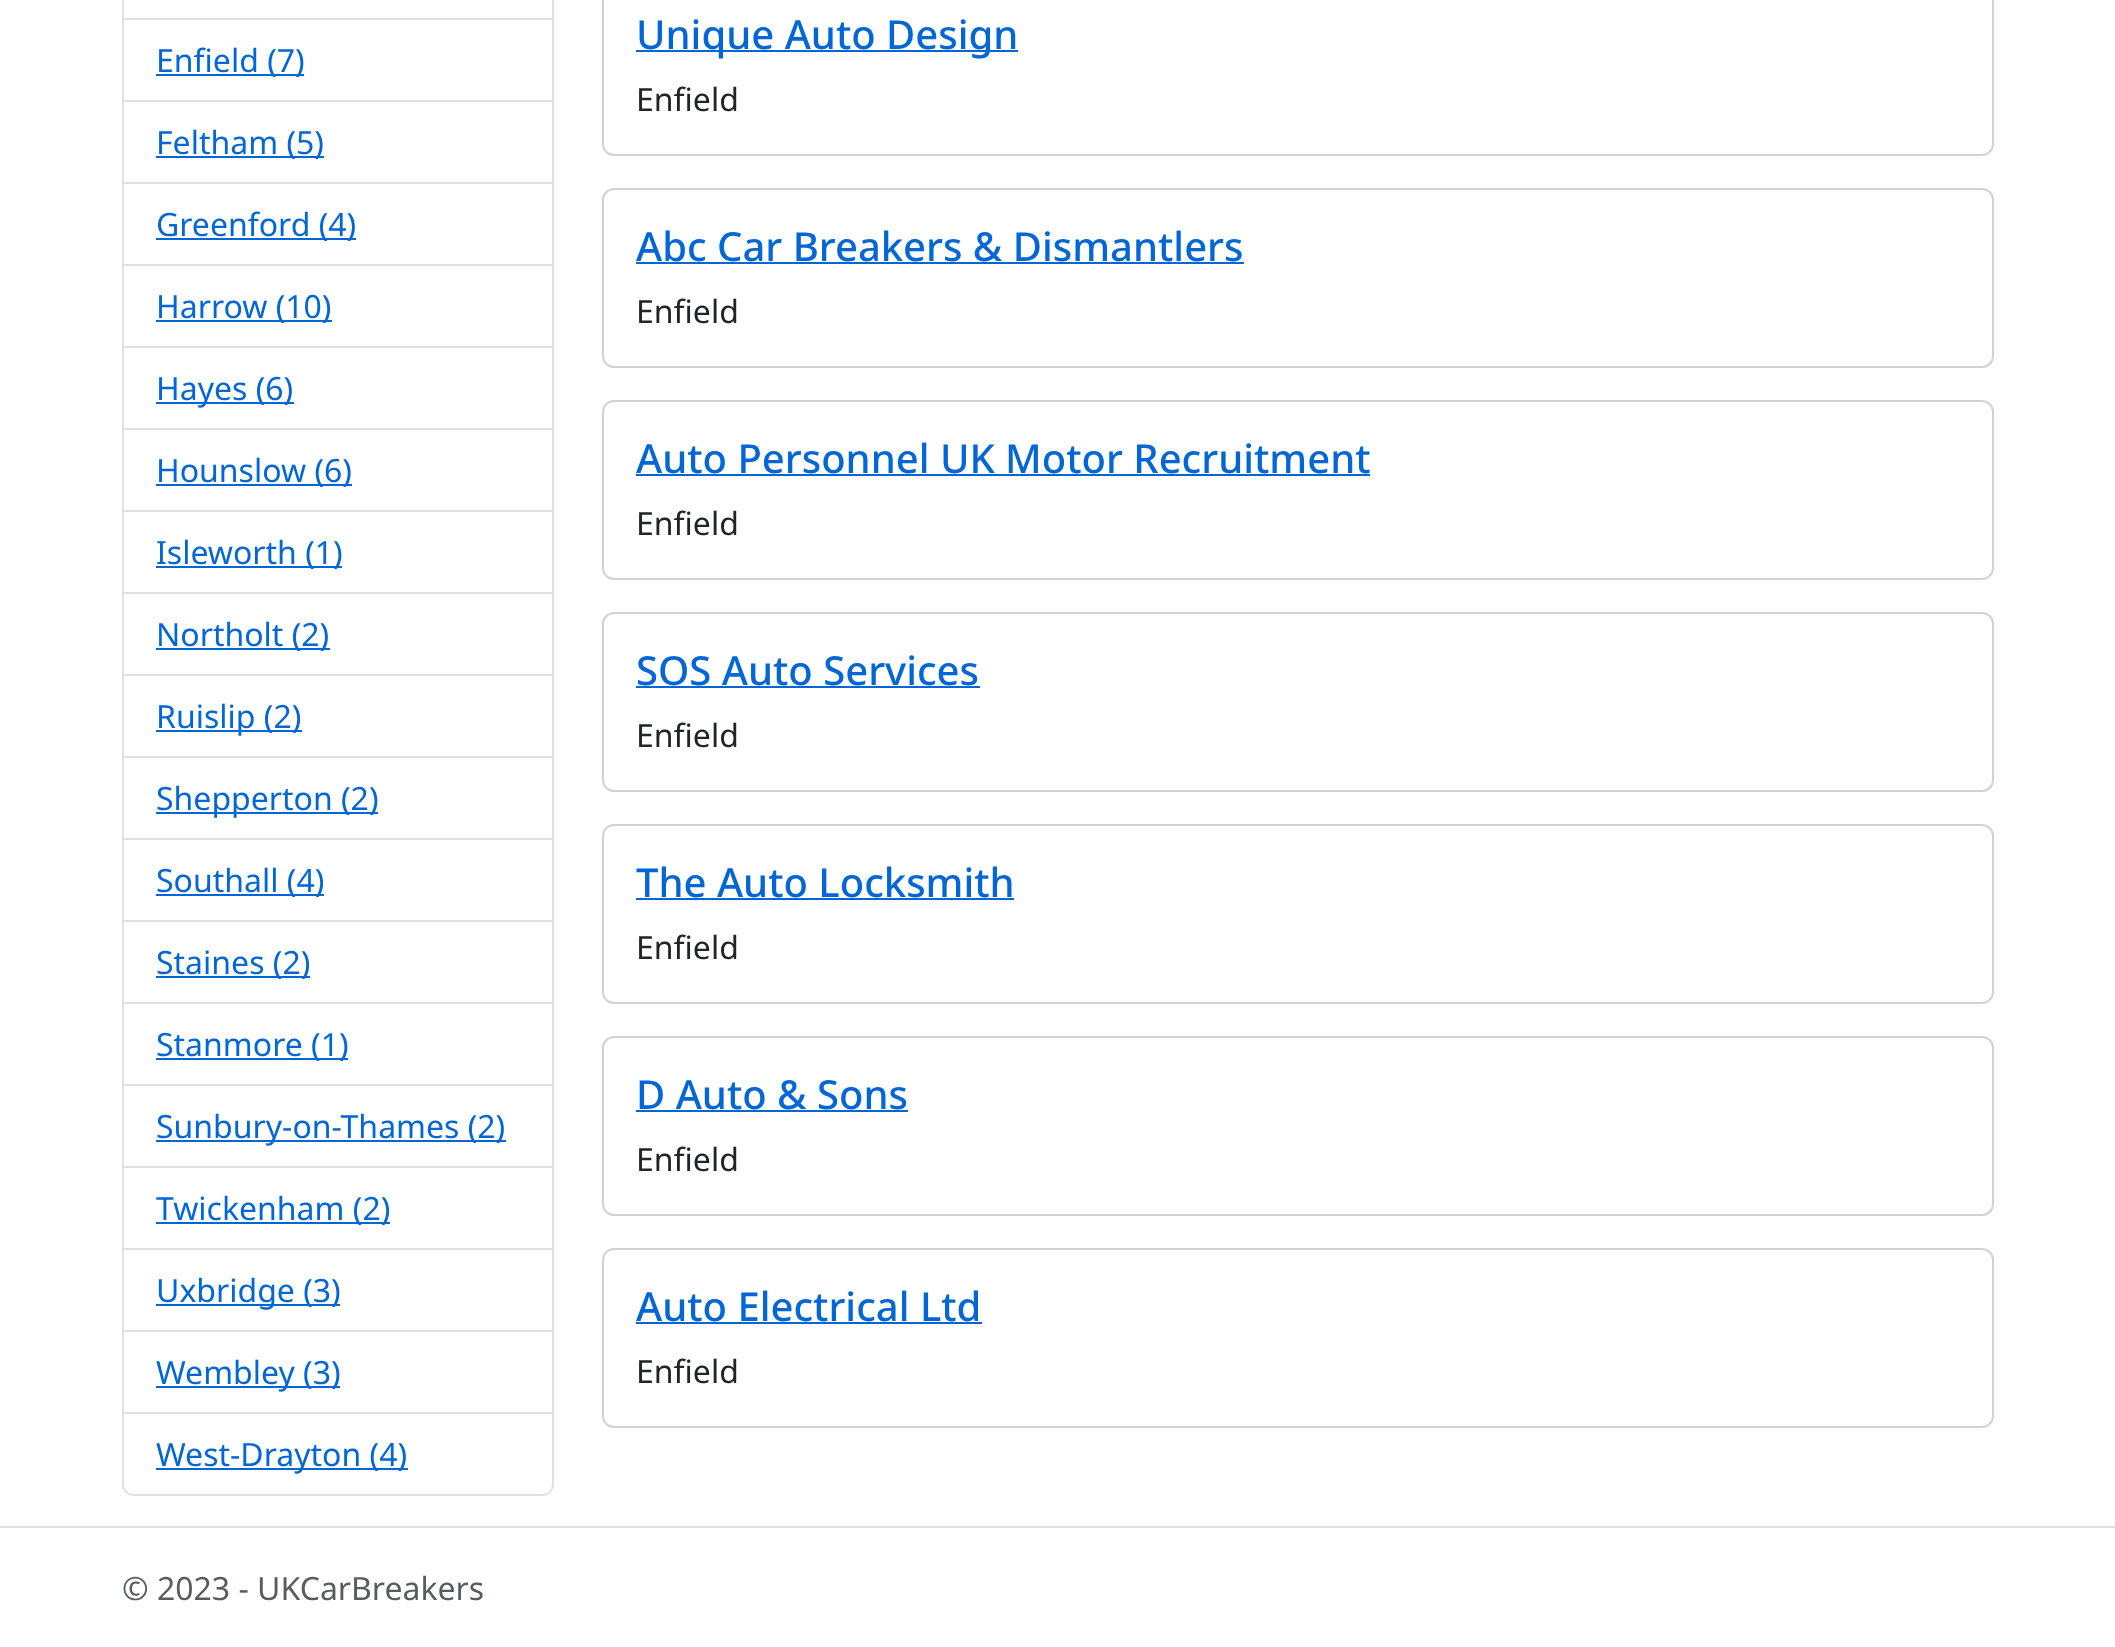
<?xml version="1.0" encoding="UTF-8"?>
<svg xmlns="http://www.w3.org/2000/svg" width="2115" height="1647">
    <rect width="100%" height="100%" fill="#FFFFFF"/>
    <rect x="552" y="0" width="2" height="1414" fill="#DEE2E6"/>
    <rect x="122" y="18" width="432" height="2" fill="#DEE2E6"/>
    <rect x="122" y="0" width="2" height="20" fill="#DEE2E6"/>
    <rect x="122" y="100" width="432" height="2" fill="#DEE2E6"/>
    <rect x="122" y="20" width="2" height="82" fill="#DEE2E6"/>
    <rect x="156" y="74" width="148" height="2" fill="#0366D6"/>
    <text x="156" y="72" font-family="Noto Sans" font-size="32" fill="#0366D6">Enfield (7)</text>
    <rect x="122" y="182" width="432" height="2" fill="#DEE2E6"/>
    <rect x="122" y="102" width="2" height="82" fill="#DEE2E6"/>
    <rect x="156" y="156" width="168" height="2" fill="#0366D6"/>
    <text x="156" y="154" font-family="Noto Sans" font-size="32" fill="#0366D6">Feltham (5)</text>
    <rect x="122" y="264" width="432" height="2" fill="#DEE2E6"/>
    <rect x="122" y="184" width="2" height="82" fill="#DEE2E6"/>
    <rect x="156" y="238" width="200" height="2" fill="#0366D6"/>
    <text x="156" y="236" font-family="Noto Sans" font-size="32" fill="#0366D6">Greenford (4)</text>
    <rect x="122" y="346" width="432" height="2" fill="#DEE2E6"/>
    <rect x="122" y="266" width="2" height="82" fill="#DEE2E6"/>
    <rect x="156" y="320" width="176" height="2" fill="#0366D6"/>
    <text x="156" y="318" font-family="Noto Sans" font-size="32" fill="#0366D6">Harrow (10)</text>
    <rect x="122" y="428" width="432" height="2" fill="#DEE2E6"/>
    <rect x="122" y="348" width="2" height="82" fill="#DEE2E6"/>
    <rect x="156" y="402" width="138" height="2" fill="#0366D6"/>
    <text x="156" y="400" font-family="Noto Sans" font-size="32" fill="#0366D6">Hayes (6)</text>
    <rect x="122" y="510" width="432" height="2" fill="#DEE2E6"/>
    <rect x="122" y="430" width="2" height="82" fill="#DEE2E6"/>
    <rect x="156" y="484" width="196" height="2" fill="#0366D6"/>
    <text x="156" y="482" font-family="Noto Sans" font-size="32" fill="#0366D6">Hounslow (6)</text>
    <rect x="122" y="592" width="432" height="2" fill="#DEE2E6"/>
    <rect x="122" y="512" width="2" height="82" fill="#DEE2E6"/>
    <rect x="156" y="566" width="186" height="2" fill="#0366D6"/>
    <text x="156" y="564" font-family="Noto Sans" font-size="32" fill="#0366D6">Isleworth (1)</text>
    <rect x="122" y="674" width="432" height="2" fill="#DEE2E6"/>
    <rect x="122" y="594" width="2" height="82" fill="#DEE2E6"/>
    <rect x="156" y="648" width="174" height="2" fill="#0366D6"/>
    <text x="156" y="646" font-family="Noto Sans" font-size="32" fill="#0366D6">Northolt (2)</text>
    <rect x="122" y="756" width="432" height="2" fill="#DEE2E6"/>
    <rect x="122" y="676" width="2" height="82" fill="#DEE2E6"/>
    <rect x="156" y="730" width="146" height="2" fill="#0366D6"/>
    <text x="156" y="728" font-family="Noto Sans" font-size="32" fill="#0366D6">Ruislip (2)</text>
    <rect x="122" y="838" width="432" height="2" fill="#DEE2E6"/>
    <rect x="122" y="758" width="2" height="82" fill="#DEE2E6"/>
    <rect x="156" y="812" width="222" height="2" fill="#0366D6"/>
    <text x="156" y="810" font-family="Noto Sans" font-size="32" fill="#0366D6">Shepperton (2)</text>
    <rect x="122" y="920" width="432" height="2" fill="#DEE2E6"/>
    <rect x="122" y="840" width="2" height="82" fill="#DEE2E6"/>
    <rect x="156" y="894" width="168" height="2" fill="#0366D6"/>
    <text x="156" y="892" font-family="Noto Sans" font-size="32" fill="#0366D6">Southall (4)</text>
    <rect x="122" y="1002" width="432" height="2" fill="#DEE2E6"/>
    <rect x="122" y="922" width="2" height="82" fill="#DEE2E6"/>
    <rect x="156" y="976" width="154" height="2" fill="#0366D6"/>
    <text x="156" y="974" font-family="Noto Sans" font-size="32" fill="#0366D6">Staines (2)</text>
    <rect x="122" y="1084" width="432" height="2" fill="#DEE2E6"/>
    <rect x="122" y="1004" width="2" height="82" fill="#DEE2E6"/>
    <rect x="156" y="1058" width="192" height="2" fill="#0366D6"/>
    <text x="156" y="1056" font-family="Noto Sans" font-size="32" fill="#0366D6">Stanmore (1)</text>
    <rect x="122" y="1166" width="432" height="2" fill="#DEE2E6"/>
    <rect x="122" y="1086" width="2" height="82" fill="#DEE2E6"/>
    <rect x="156" y="1140" width="350" height="2" fill="#0366D6"/>
    <text x="156" y="1138" font-family="Noto Sans" font-size="32" fill="#0366D6">Sunbury-on-Thames (2)</text>
    <rect x="122" y="1248" width="432" height="2" fill="#DEE2E6"/>
    <rect x="122" y="1168" width="2" height="82" fill="#DEE2E6"/>
    <rect x="156" y="1222" width="234" height="2" fill="#0366D6"/>
    <text x="156" y="1220" font-family="Noto Sans" font-size="32" fill="#0366D6">Twickenham (2)</text>
    <rect x="122" y="1330" width="432" height="2" fill="#DEE2E6"/>
    <rect x="122" y="1250" width="2" height="82" fill="#DEE2E6"/>
    <rect x="156" y="1304" width="184" height="2" fill="#0366D6"/>
    <text x="156" y="1302" font-family="Noto Sans" font-size="32" fill="#0366D6">Uxbridge (3)</text>
    <rect x="122" y="1412" width="432" height="2" fill="#DEE2E6"/>
    <rect x="122" y="1332" width="2" height="82" fill="#DEE2E6"/>
    <rect x="156" y="1386" width="184" height="2" fill="#0366D6"/>
    <text x="156" y="1384" font-family="Noto Sans" font-size="32" fill="#0366D6">Wembley (3)</text>
    <path d="M 122 1414 H 554 V 1484 C 554 1491 549 1496 542 1496 H 134 C 127 1496 122 1491 122 1484 Z M 124 1414 H 552 V 1484 C 552 1490 548 1494 542 1494 H 134 C 128 1494 124 1490 124 1484 Z" fill="#DEE2E6" fill-rule="evenodd"/>
    <rect x="156" y="1468" width="252" height="2" fill="#0366D6"/>
    <text x="156" y="1466" font-family="Noto Sans" font-size="32" fill="#0366D6">West-Drayton (4)</text>
    <rect x="603" y="-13" width="1390" height="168" rx="11" fill="none" stroke="#D2D2D2" stroke-width="2"/>
    <rect x="636" y="50" width="382" height="2" fill="#0366D6"/>
    <text x="636" y="49" font-family="Noto Sans" font-size="40" font-weight="500" fill="#0366D6">Unique Auto Design</text>
    <text x="636" y="111" font-family="Noto Sans" font-size="32" fill="#212529">Enfield</text>
    <rect x="603" y="189" width="1390" height="178" rx="11" fill="none" stroke="#D2D2D2" stroke-width="2"/>
    <text x="636" y="261" font-family="Noto Sans" font-size="40" font-weight="500" fill="#0366D6">Abc Car Breakers &amp; Dismantlers</text>
    <rect x="636" y="262" width="608" height="2" fill="#0366D6"/>
    <text x="636" y="323" font-family="Noto Sans" font-size="32" fill="#212529">Enfield</text>
    <rect x="603" y="401" width="1390" height="178" rx="11" fill="none" stroke="#D2D2D2" stroke-width="2"/>
    <text x="636" y="473" font-family="Noto Sans" font-size="40" font-weight="500" fill="#0366D6">Auto Personnel UK Motor Recruitment</text>
    <rect x="636" y="474" width="734" height="2" fill="#0366D6"/>
    <text x="636" y="535" font-family="Noto Sans" font-size="32" fill="#212529">Enfield</text>
    <rect x="603" y="613" width="1390" height="178" rx="11" fill="none" stroke="#D2D2D2" stroke-width="2"/>
    <text x="636" y="685" font-family="Noto Sans" font-size="40" font-weight="500" fill="#0366D6">SOS Auto Services</text>
    <rect x="636" y="686" width="344" height="2" fill="#0366D6"/>
    <text x="636" y="747" font-family="Noto Sans" font-size="32" fill="#212529">Enfield</text>
    <rect x="603" y="825" width="1390" height="178" rx="11" fill="none" stroke="#D2D2D2" stroke-width="2"/>
    <text x="636" y="897" font-family="Noto Sans" font-size="40" font-weight="500" fill="#0366D6">The Auto Locksmith</text>
    <rect x="636" y="898" width="378" height="2" fill="#0366D6"/>
    <text x="636" y="959" font-family="Noto Sans" font-size="32" fill="#212529">Enfield</text>
    <rect x="603" y="1037" width="1390" height="178" rx="11" fill="none" stroke="#D2D2D2" stroke-width="2"/>
    <text x="636" y="1109" font-family="Noto Sans" font-size="40" font-weight="500" fill="#0366D6">D Auto &amp; Sons</text>
    <rect x="636" y="1110" width="272" height="2" fill="#0366D6"/>
    <text x="636" y="1171" font-family="Noto Sans" font-size="32" fill="#212529">Enfield</text>
    <rect x="603" y="1249" width="1390" height="178" rx="11" fill="none" stroke="#D2D2D2" stroke-width="2"/>
    <text x="636" y="1321" font-family="Noto Sans" font-size="40" font-weight="500" fill="#0366D6">Auto Electrical Ltd</text>
    <rect x="636" y="1322" width="346" height="2" fill="#0366D6"/>
    <text x="636" y="1383" font-family="Noto Sans" font-size="32" fill="#212529">Enfield</text>
    <rect x="0" y="1526" width="2115" height="2" fill="#DEE2E6"/>
    <text x="122" y="1600" font-family="Noto Sans" font-size="32" fill="#595C5F">© 2023 - UKCarBreakers</text>
</svg>
